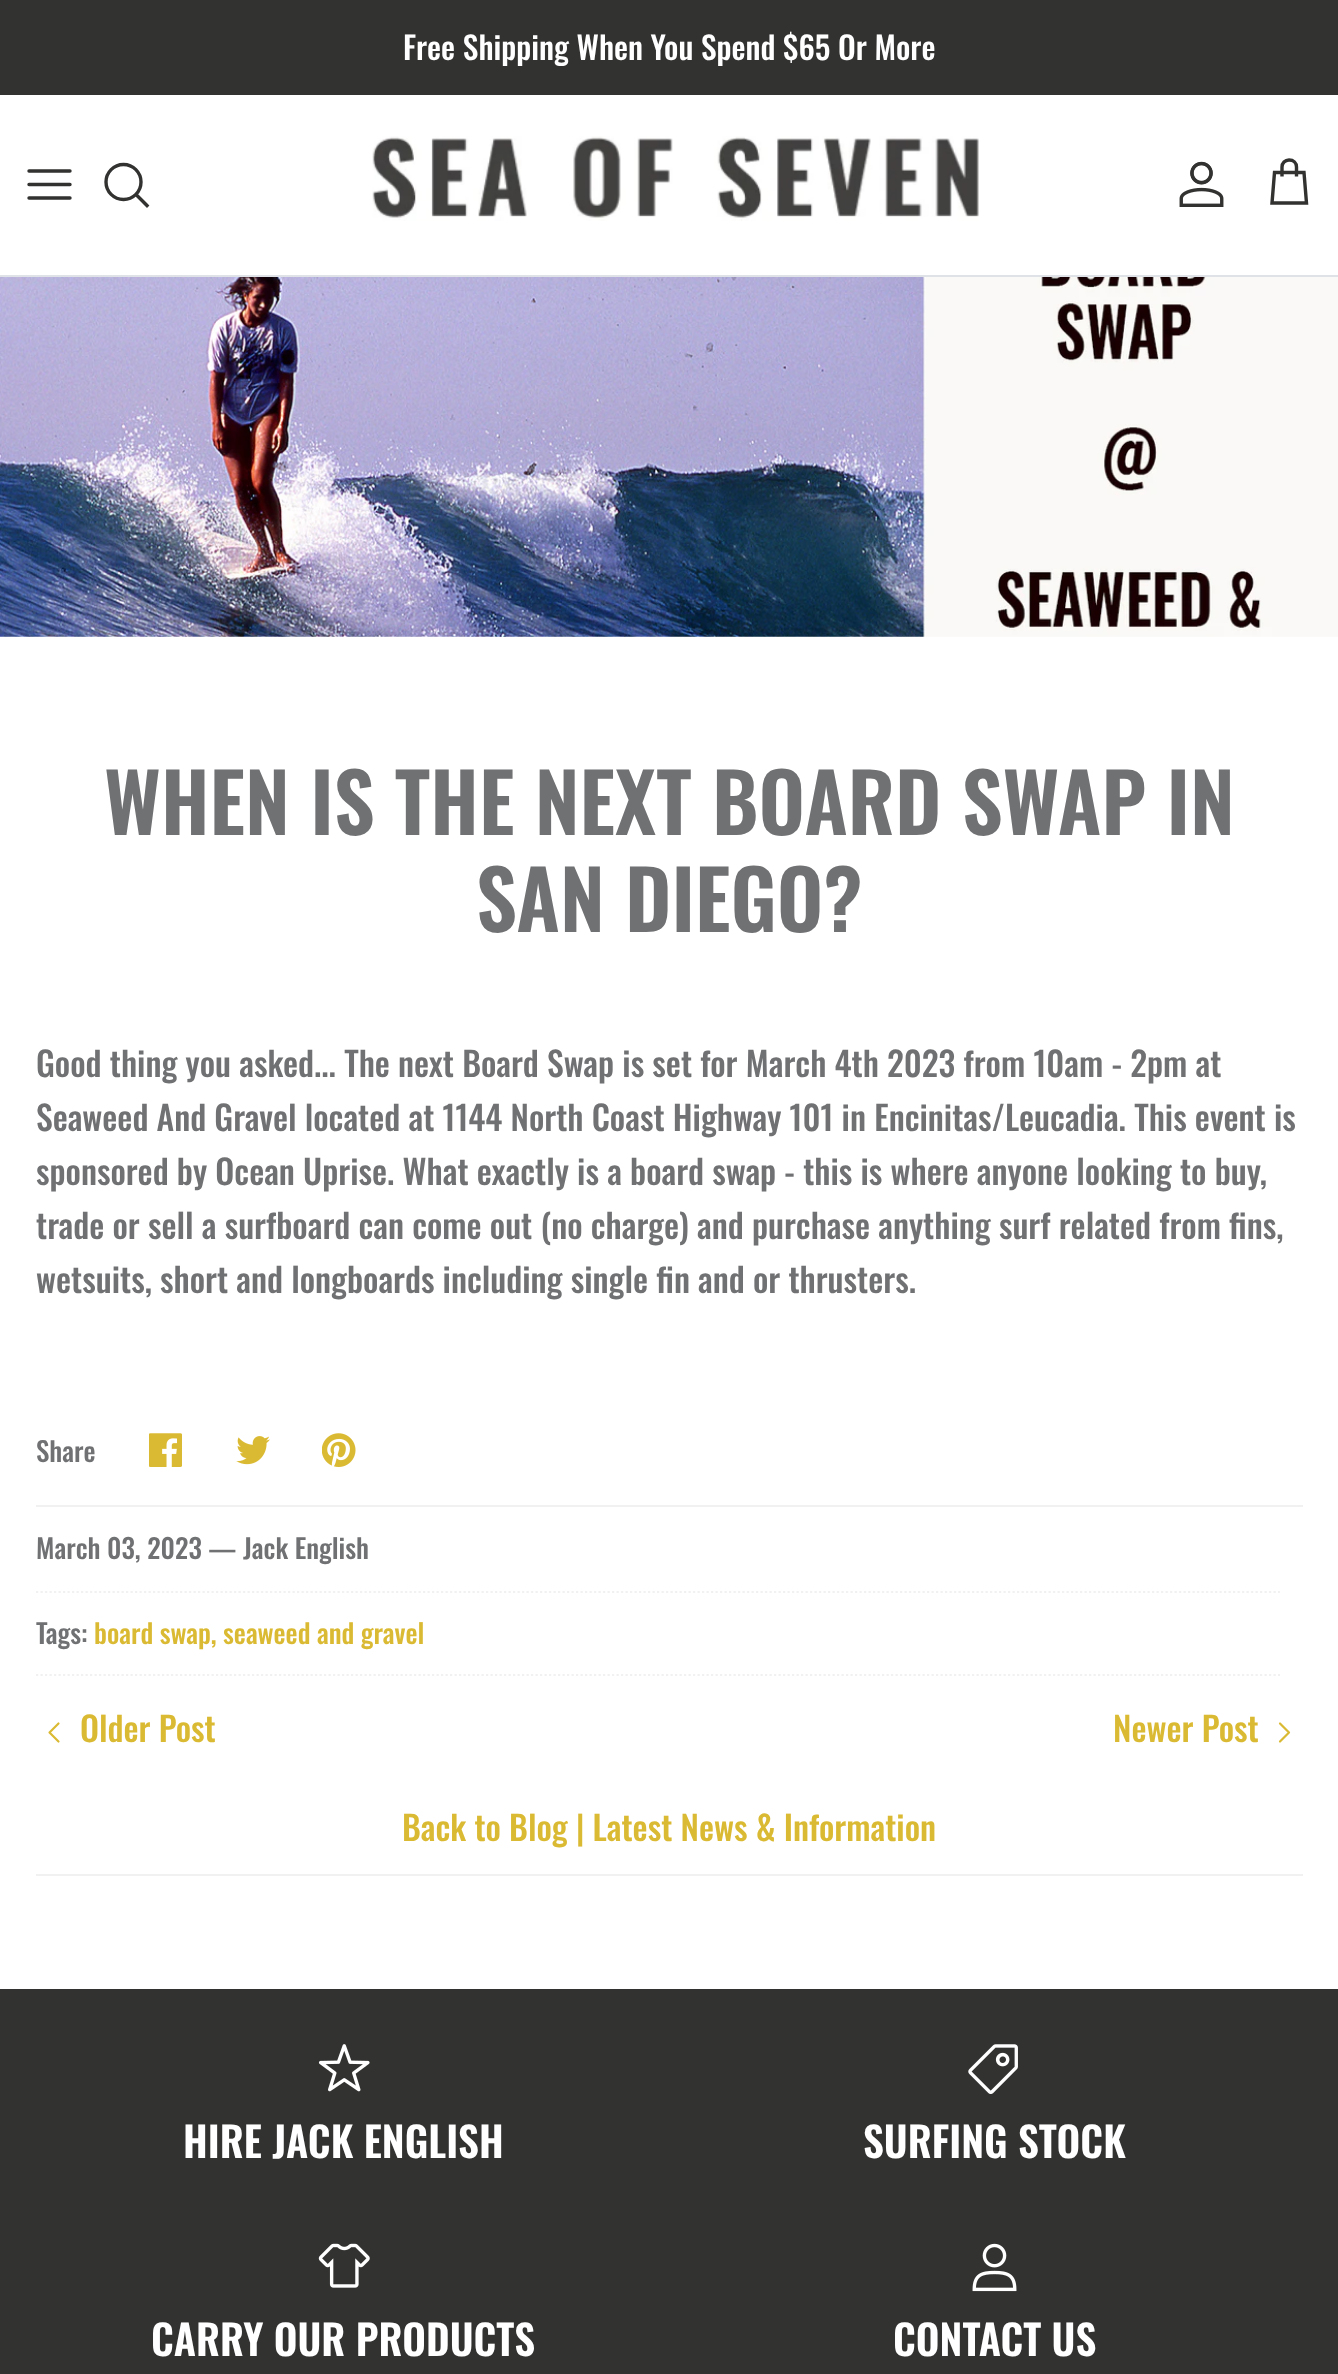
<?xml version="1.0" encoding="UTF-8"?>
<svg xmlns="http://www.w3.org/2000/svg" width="1338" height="2374">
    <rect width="100%" height="100%" fill="#FFFFFF"/>
    <rect x="0" y="0" width="1338" height="95" fill="#323231"/>
    <text x="403" y="60" font-family="Oswald" font-size="31.5" font-weight="500" fill="#FFFFFF">Free Shipping When You Spend $65 Or More</text>
    <rect x="0" y="275" width="1338" height="2" fill="#DFE3E8"/>
    <path d="M 29 184.5 H 70 M 29 171 H 70 M 29 198 H 70" fill="none" stroke="#323231" stroke-width="3.4" stroke-linecap="round" stroke-linejoin="round"/>
    <circle cx="123.5" cy="182" r="17.5" fill="none" stroke="#323231" stroke-width="3.4"/>
    <path d="M 137 195.5 L 147 205.5" fill="none" stroke="#323231" stroke-width="3.4" stroke-linecap="square"/>
    <image x="372" y="136" width="607" height="85" href="img_01.png"/>
    <image x="1179" y="161" width="45" height="46" href="img_02.png"/>
    <path d="M 1296.5 176.5 V 167 C 1296.5 163 1293.5 160 1289 160 C 1285 160 1282 163 1282 167 V 176.5 M 1274.5 172.5 H 1304 L 1306.5 203 H 1272 Z" fill="none" stroke="#323231" stroke-width="3.4"/>
    <image x="0" y="277" width="1338" height="360" href="img_03.png"/>
    <text x="104" y="835" font-family="Oswald" font-size="81" font-weight="600" fill="#707173">WHEN IS THE NEXT BOARD SWAP IN</text>
    <text x="476" y="932" font-family="Oswald" font-size="81" font-weight="600" fill="#707173">SAN DIEGO?</text>
    <text font-family="Oswald" font-size="33.75" font-weight="500" fill="#707173">
        <tspan x="36" y="1077">Good thing you asked... The next Board Swap is set for March 4th 2023 from 10am - 2pm at</tspan>
        <tspan x="36" y="1131">Seaweed And Gravel located at 1144 North Coast Highway 101 in Encinitas/Leucadia. This event is</tspan>
        <tspan x="36" y="1185">sponsored by Ocean Uprise. What exactly is a board swap - this is where anyone looking to buy,</tspan>
        <tspan x="36" y="1239">trade or sell a surfboard can come out (no charge) and purchase anything surf related from fins,</tspan>
        <tspan x="36" y="1293">wetsuits, short and longboards including single fin and or thrusters.</tspan>
    </text>
    <text x="36" y="1462" font-family="Oswald" font-size="27" font-weight="500" fill="#707173">Share</text>
    <image x="149" y="1433" width="33" height="34" href="img_04.png"/>
    <image x="236" y="1436" width="34" height="29" href="img_05.png"/>
    <image x="322" y="1433" width="34" height="34" href="img_06.png"/>
    <rect x="36" y="1505" width="1267" height="2" fill="#F1F1F1"/>
    <path d="M 36 1592 H 1280" fill="none" stroke="#F1F1F1" stroke-width="2.2" stroke-dasharray="2.25 2.25"/>
    <text x="36" y="1559" font-family="Oswald" font-size="27" font-weight="500" fill="#707173">March 03, 2023 — Jack English</text>
    <path d="M 36 1675 H 1280" fill="none" stroke="#F1F1F1" stroke-width="2.2" stroke-dasharray="2.25 2.25"/>
    <text x="36" y="1644" font-family="Oswald" font-size="27" font-weight="500" fill="#707173">Tags:</text>
    <text x="94" y="1644" font-family="Oswald" font-size="27" font-weight="500" fill="#DBBA33">board swap, seaweed and gravel</text>
    <rect x="36" y="1874" width="1267" height="2" fill="#F1F1F1"/>
    <text x="80" y="1742" font-family="Oswald" font-size="33.75" font-weight="500" fill="#DBBA33">Older Post</text>
    <path d="M 58.5 1741.5 L 49.5 1732.5 L 58.5 1723.5" fill="none" stroke="#DBBA33" stroke-width="2.2" stroke-linecap="round" stroke-linejoin="round"/>
    <text x="1113" y="1742" font-family="Oswald" font-size="33.75" font-weight="500" fill="#DBBA33">Newer Post</text>
    <path d="M 1280 1741.5 L 1289 1732.5 L 1280 1723.5" fill="none" stroke="#DBBA33" stroke-width="2.2" stroke-linecap="round" stroke-linejoin="round"/>
    <text x="402" y="1841" font-family="Oswald" font-size="33.75" font-weight="500" fill="#DBBA33">Back to Blog | Latest News &amp; Information</text>
    <rect x="0" y="1989" width="1338" height="385" fill="#323231"/>
    <image x="318" y="2044" width="52" height="48" href="img_07.png"/>
    <text x="183" y="2158" font-family="Oswald" font-size="41.25" font-weight="600" fill="#FFFFFF">HIRE JACK ENGLISH</text>
    <image x="968" y="2044" width="50" height="50" href="img_08.png"/>
    <text x="863" y="2158" font-family="Oswald" font-size="41.25" font-weight="600" fill="#FFFFFF">SURFING STOCK</text>
    <image x="318" y="2243" width="52" height="45" href="img_09.png"/>
    <text x="151" y="2356" font-family="Oswald" font-size="41.25" font-weight="600" fill="#FFFFFF">CARRY OUR PRODUCTS</text>
    <image x="972" y="2243" width="45" height="49" href="img_10.png"/>
    <text x="893" y="2356" font-family="Oswald" font-size="41.25" font-weight="600" fill="#FFFFFF">CONTACT US</text>
</svg>
